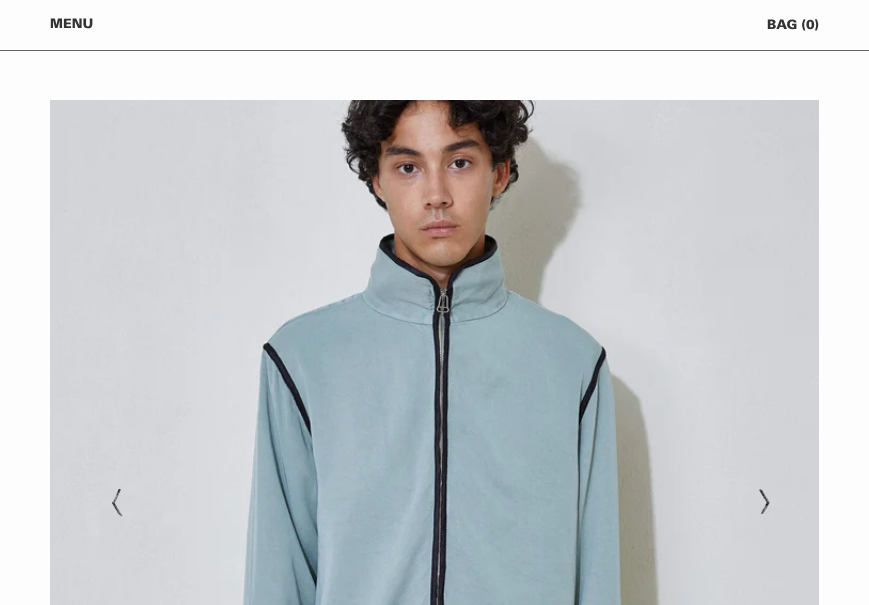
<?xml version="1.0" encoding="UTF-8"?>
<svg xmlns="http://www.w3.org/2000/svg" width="869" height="605">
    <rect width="100%" height="100%" fill="#FDFDFD"/>
    <rect x="0" y="50" width="869" height="1" fill="#626262"/>
    <text x="50" y="28" font-family="Univers" font-size="13" fill="#333333">MENU</text>
    <text x="767" y="29" font-family="Univers" font-size="13" fill="#333333">BAG (0)</text>
    <image x="50" y="100" width="769" height="505" href="img_01.png"/>
    <image x="112" y="489" width="11" height="28" href="img_02.png"/>
    <image x="759" y="489" width="11" height="26" href="img_03.png"/>
</svg>
